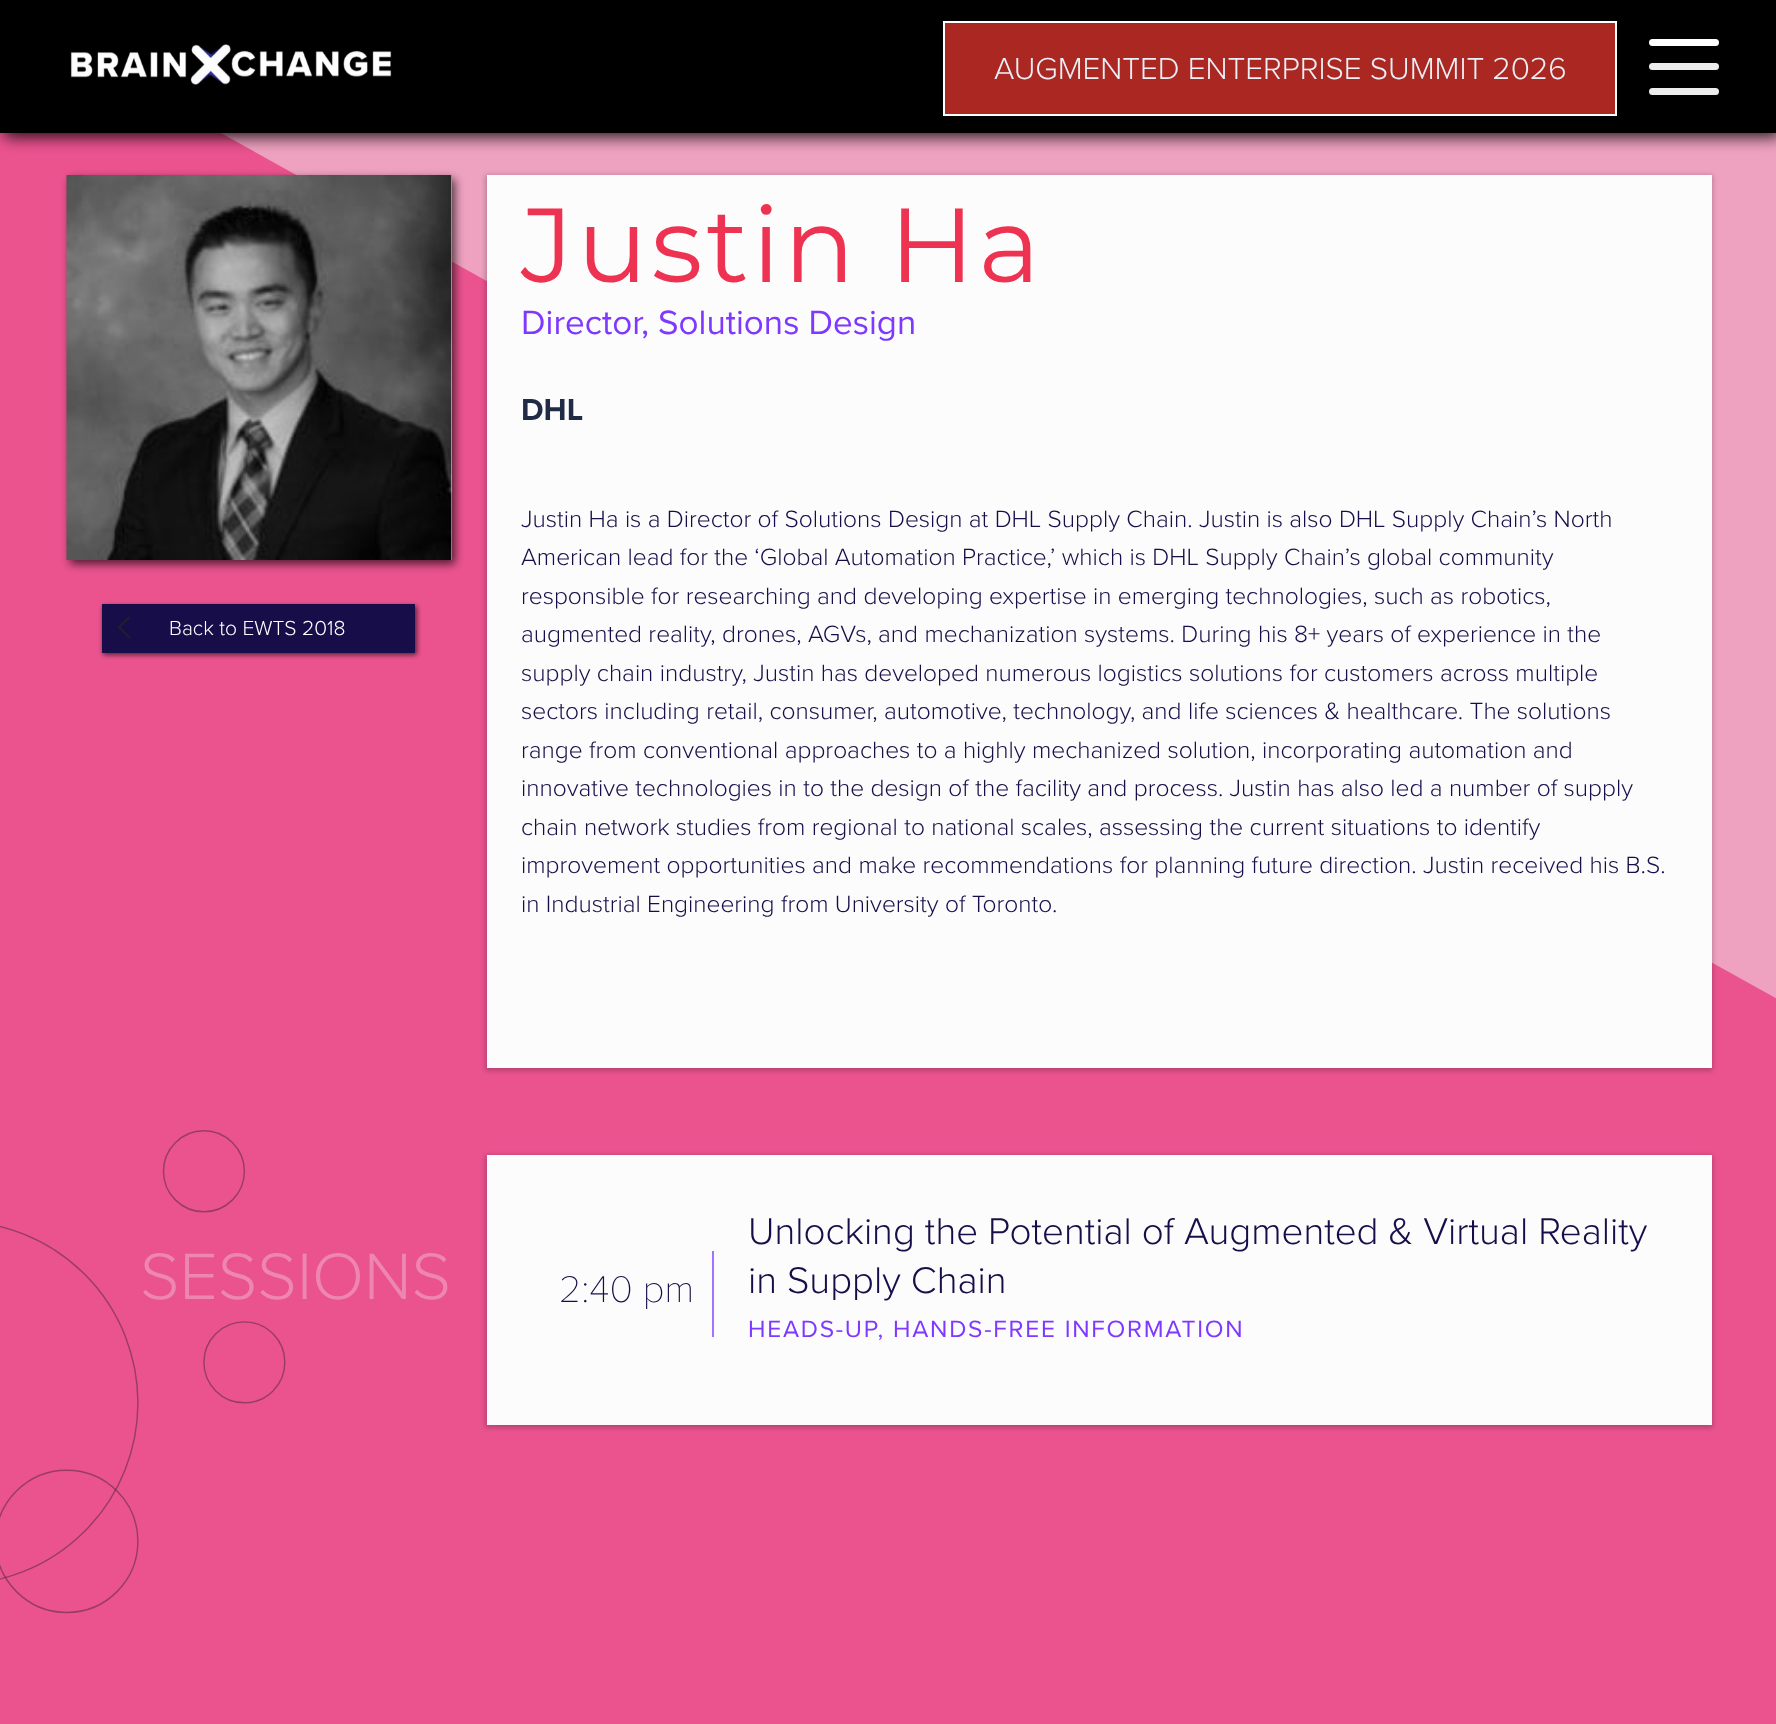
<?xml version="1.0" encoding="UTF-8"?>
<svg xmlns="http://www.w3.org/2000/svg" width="1776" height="1724">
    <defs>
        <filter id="blur1" x="-50%" y="-200%" width="200%" height="500%"><feGaussianBlur stdDeviation="8"/></filter>
        <filter id="blur2" x="-50%" y="-200%" width="200%" height="500%"><feGaussianBlur stdDeviation="2.5"/></filter>
        <filter id="blur3" x="-50%" y="-200%" width="200%" height="500%"><feGaussianBlur stdDeviation="5"/></filter>
    </defs>
    <rect width="100%" height="100%" fill="#EB538F"/>
    <image x="0" y="133" width="1776" height="1481" href="img_01.png"/>
    <rect x="4" y="4" width="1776" height="133" fill="#000000" fill-opacity="0.85" filter="url(#blur1)"/>
    <rect x="0" y="0" width="1776" height="133" fill="#000000"/>
    <image x="70" y="44" width="322" height="41" href="img_02.png"/>
    <rect x="944" y="22" width="672" height="93" fill="#AA2722" stroke="#FFFFFF" stroke-width="2"/>
    <text x="994" y="79" font-family="Proxima Nova" font-size="31.5" font-weight="300" fill="#EAF0F6">AUGMENTED ENTERPRISE SUMMIT 2026</text>
    <rect x="1649" y="39" width="70" height="7" rx="3.5" fill="#FFFFFF"/>
    <rect x="1649" y="63" width="70" height="7" rx="3.5" fill="#ECECED"/>
    <rect x="1649" y="88" width="70" height="7" rx="3.5" fill="#ECECED"/>
    <rect x="485" y="175" width="1228" height="896" fill="#000000" fill-opacity="0.21" filter="url(#blur2)"/>
    <rect x="487" y="175" width="1225" height="893" fill="#FCFCFC"/>
    <text x="521" y="282" font-family="Montserrat" font-size="105" letter-spacing="3.5" fill="#EE3251">Justin Ha</text>
    <text x="521" y="334" font-family="Proxima Nova" font-size="35" fill="#7E38FF">Director, Solutions Design</text>
    <text x="521" y="420" font-family="Proxima Nova" font-size="31.5" font-weight="700" fill="#222B46">DHL</text>
    <text font-family="Proxima Nova" font-size="24.5" font-weight="300" fill="#170E49">
        <tspan x="521" y="527">Justin Ha is a Director of Solutions Design at DHL Supply Chain. Justin is also DHL Supply Chain’s North</tspan>
        <tspan x="521" y="565">American lead for the ‘Global Automation Practice,’ which is DHL Supply Chain’s global community</tspan>
        <tspan x="521" y="604">responsible for researching and developing expertise in emerging technologies, such as robotics,</tspan>
        <tspan x="521" y="642">augmented reality, drones, AGVs, and mechanization systems. During his 8+ years of experience in the</tspan>
        <tspan x="521" y="681">supply chain industry, Justin has developed numerous logistics solutions for customers across multiple</tspan>
        <tspan x="521" y="719">sectors including retail, consumer, automotive, technology, and life sciences &amp; healthcare. The solutions</tspan>
        <tspan x="521" y="758">range from conventional approaches to a highly mechanized solution, incorporating automation and</tspan>
        <tspan x="521" y="796">innovative technologies in to the design of the facility and process. Justin has also led a number of supply</tspan>
        <tspan x="521" y="835">chain network studies from regional to national scales, assessing the current situations to identify</tspan>
        <tspan x="521" y="873">improvement opportunities and make recommendations for planning future direction. Justin received his B.S.</tspan>
        <tspan x="521" y="912">in Industrial Engineering from University of Toronto.</tspan>
    </text>
    <text x="140" y="1299" font-family="Proxima Nova" font-size="68" font-weight="300" fill="#ED87B0">SESSIONS</text>
    <rect x="485" y="1155" width="1228" height="273" fill="#000000" fill-opacity="0.21" filter="url(#blur2)"/>
    <rect x="487" y="1155" width="1225" height="270" fill="#FCFCFC"/>
    <rect x="712" y="1251" width="2" height="86" fill="#A473FD"/>
    <text x="559" y="1302" font-family="Proxima Nova" font-size="38.5" font-weight="100" fill="#170E49">2:40 pm</text>
    <text font-family="Proxima Nova" font-size="38.5" font-weight="300" fill="#170E49">
        <tspan x="748" y="1244">Unlocking the Potential of Augmented &amp; Virtual Reality</tspan>
        <tspan x="748" y="1293">in Supply Chain</tspan>
    </text>
    <text x="748" y="1337" font-family="Proxima Nova" font-size="24.5" letter-spacing="1.75" fill="#7E38FF">HEADS-UP, HANDS-FREE INFORMATION</text>
    <rect x="70" y="179" width="385" height="385" fill="#000000" fill-opacity="0.67" filter="url(#blur3)"/>
    <rect x="451" y="175" width="1" height="385" fill="#FFFFFF"/>
    <image x="66" y="175" width="386" height="385" href="img_03.png"/>
    <rect x="103" y="606" width="314" height="49" fill="#000000" fill-opacity="0.61" filter="url(#blur2)"/>
    <rect x="102" y="604" width="313" height="49" fill="#170E49"/>
    <image x="117" y="616" width="14" height="23" href="img_04.png"/>
    <text x="169" y="635" font-family="Proxima Nova" font-size="21" font-weight="300" fill="#FFFFFF">Back to EWTS 2018</text>
</svg>
